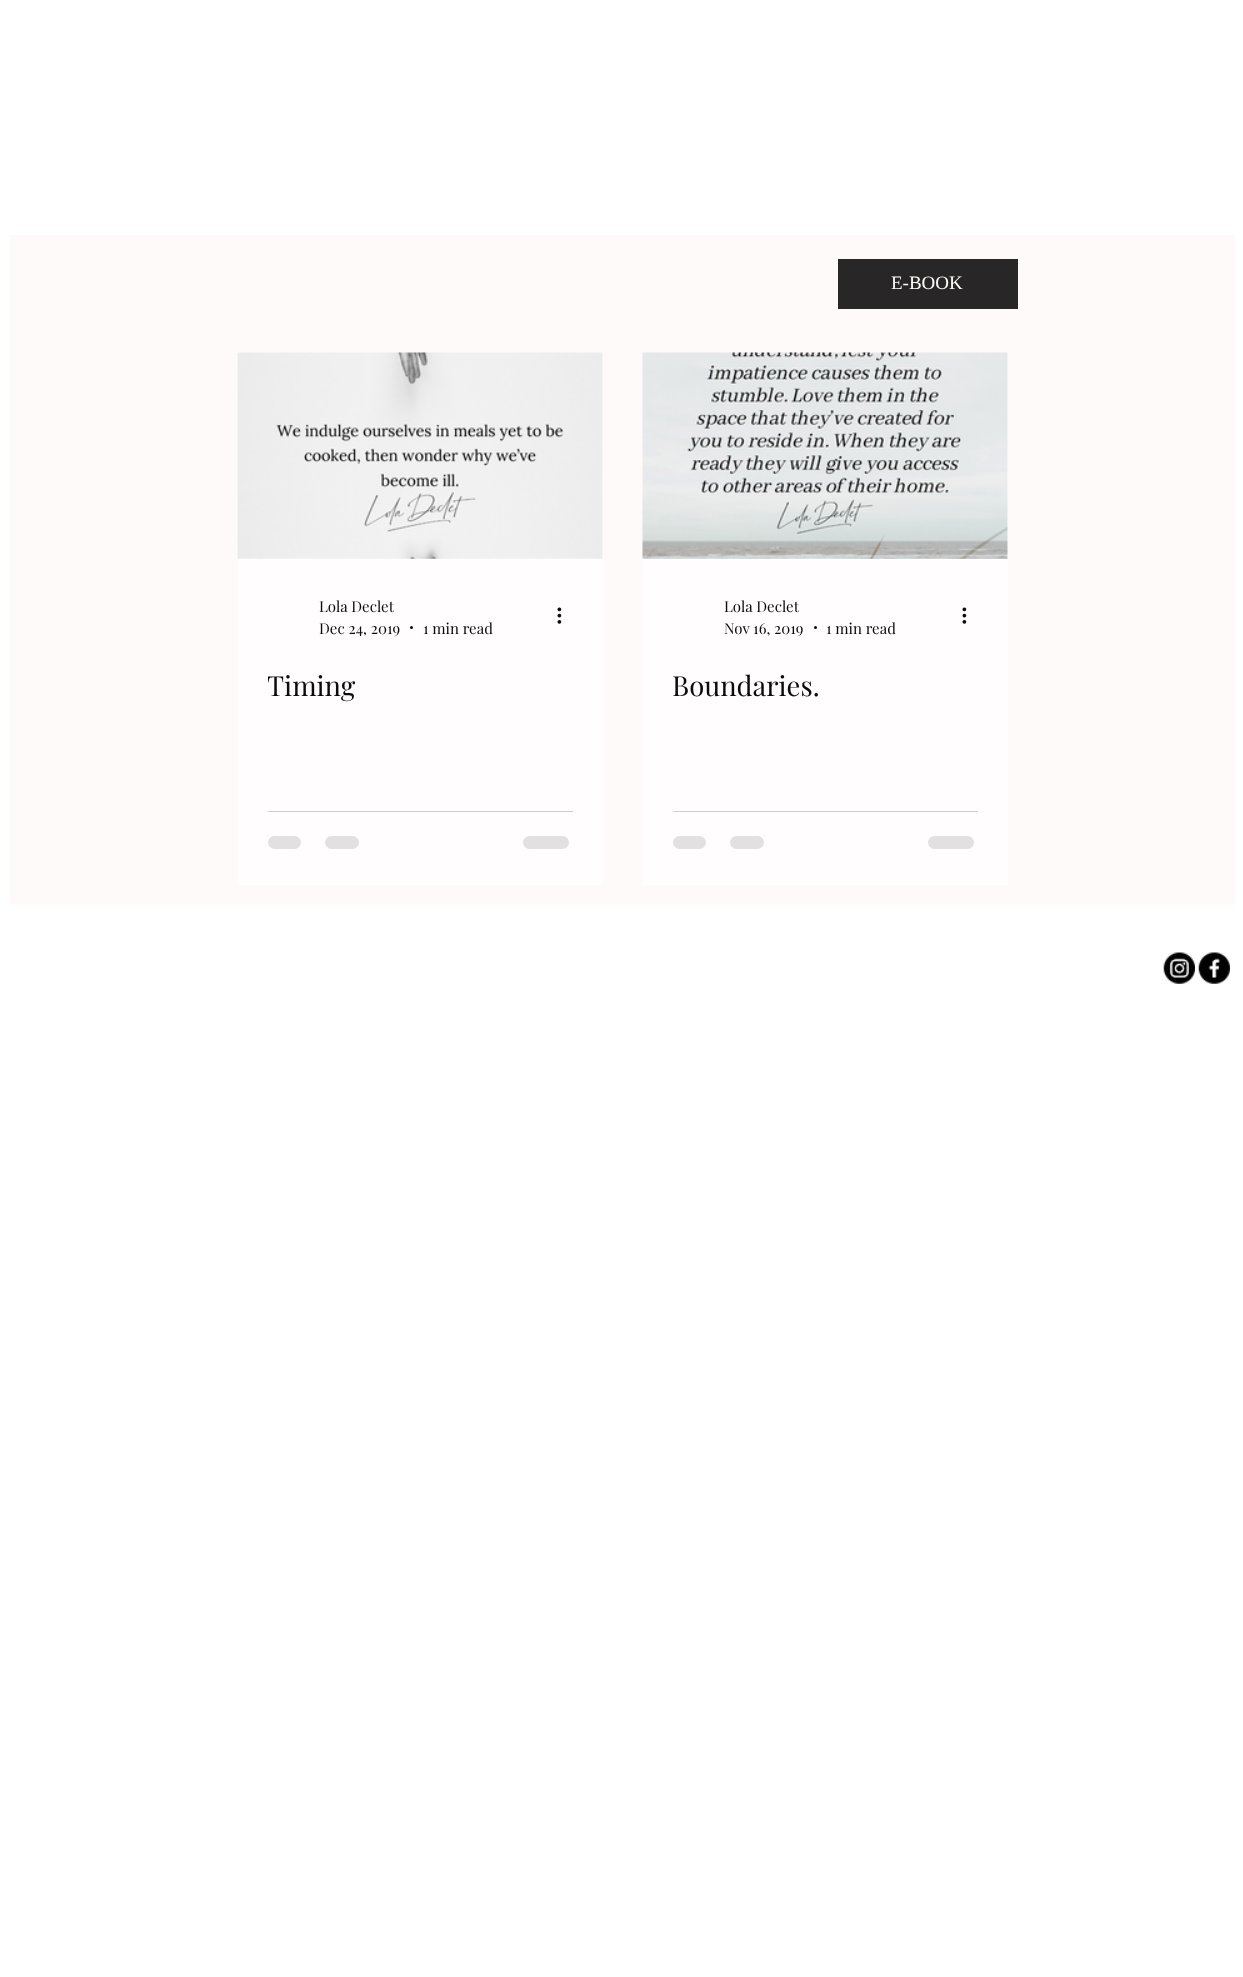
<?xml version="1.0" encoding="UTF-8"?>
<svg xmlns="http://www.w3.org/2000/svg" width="1243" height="1977">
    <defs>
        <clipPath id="clip1"><rect x="268" y="669" width="305" height="34"/></clipPath>
    </defs>
    <rect width="100%" height="100%" fill="#FFFFFF"/>
    <rect x="10" y="235" width="1225" height="669" fill="#FFFAFA"/>
    <rect x="838" y="259" width="180" height="50" fill="#282626"/>
    <text x="891" y="289" font-family="Liberation Serif" font-size="19" fill="#FFFAFA">E-BOOK</text>
    <rect x="238" y="353" width="365" height="532" fill="#FFFDFD"/>
    <image x="237" y="352" width="366" height="207" href="img_01.png"/>
    <text font-family="Playfair Display" font-size="15" fill="#0C0C0D">
        <tspan x="319" y="612">Lola Declet</tspan>
        <tspan x="319" y="634">Dec 24, 2019</tspan>
    </text>
    <circle cx="411.5" cy="627.5" r="1.5" fill="#0C0C0D"/>
    <text x="423" y="634" font-family="Playfair Display" font-size="15" fill="#0C0C0D">1 min read</text>
    <image x="557" y="607" width="5" height="17" href="img_02.png"/>
    <g clip-path="url(#clip1)">
        <text x="267" y="696" font-family="Playfair Display" font-size="27.5" fill="#0C0C0D">Timing</text>
    </g>
    <rect x="268" y="811" width="305" height="1" fill="#CECDCD"/>
    <rect x="268" y="836" width="33" height="13" rx="6.5" fill="#E2E0E0"/>
    <rect x="325" y="836" width="34" height="13" rx="6.5" fill="#E2E0E0"/>
    <rect x="523" y="836" width="46" height="13" rx="6.5" fill="#E2E0E0"/>
    <rect x="643" y="353" width="365" height="532" fill="#FFFDFD"/>
    <image x="642" y="352" width="366" height="207" href="img_03.png"/>
    <text font-family="Playfair Display" font-size="15" fill="#0C0C0D">
        <tspan x="724" y="612">Lola Declet</tspan>
        <tspan x="724" y="634">Nov 16, 2019</tspan>
    </text>
    <circle cx="815.5" cy="627.5" r="1.5" fill="#0C0C0D"/>
    <text x="826" y="634" font-family="Playfair Display" font-size="15" fill="#0C0C0D">1 min read</text>
    <image x="962" y="607" width="5" height="17" href="img_02.png"/>
    <text x="672" y="696" font-family="Playfair Display" font-size="27.5" fill="#0C0C0D">Boundaries.</text>
    <rect x="673" y="811" width="305" height="1" fill="#CECDCD"/>
    <rect x="673" y="836" width="33" height="13" rx="6.5" fill="#E2E0E0"/>
    <rect x="730" y="836" width="34" height="13" rx="6.5" fill="#E2E0E0"/>
    <rect x="928" y="836" width="46" height="13" rx="6.5" fill="#E2E0E0"/>
    <image x="1163" y="952" width="32" height="32" href="img_04.png"/>
    <image x="1198" y="952" width="32" height="32" href="img_05.png"/>
</svg>
